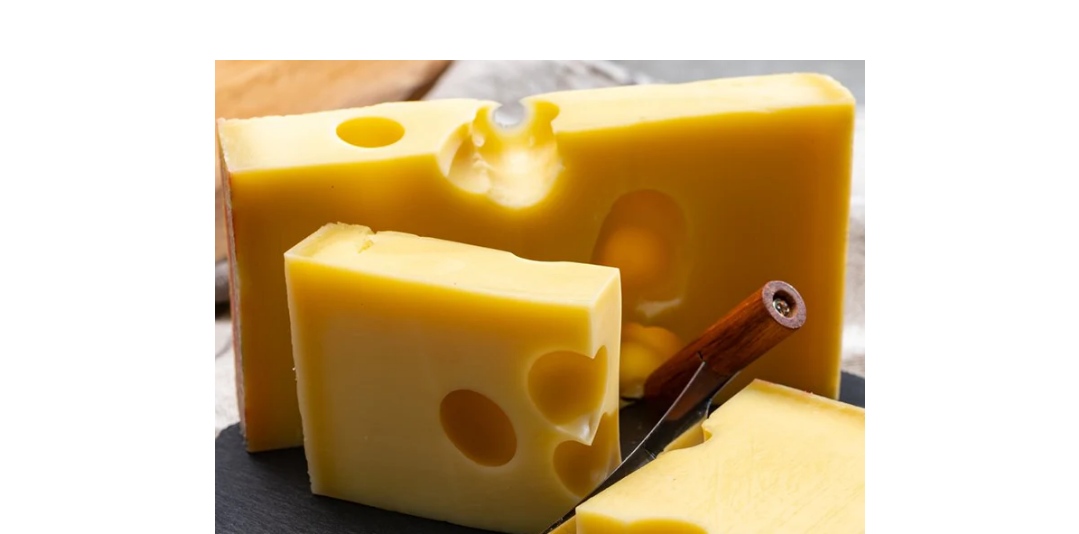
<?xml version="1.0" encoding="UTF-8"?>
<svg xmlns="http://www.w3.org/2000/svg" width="1079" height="534">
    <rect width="100%" height="100%" fill="#FFFFFF"/>
    <image x="215" y="60" width="650" height="474" href="img_01.png"/>
</svg>
